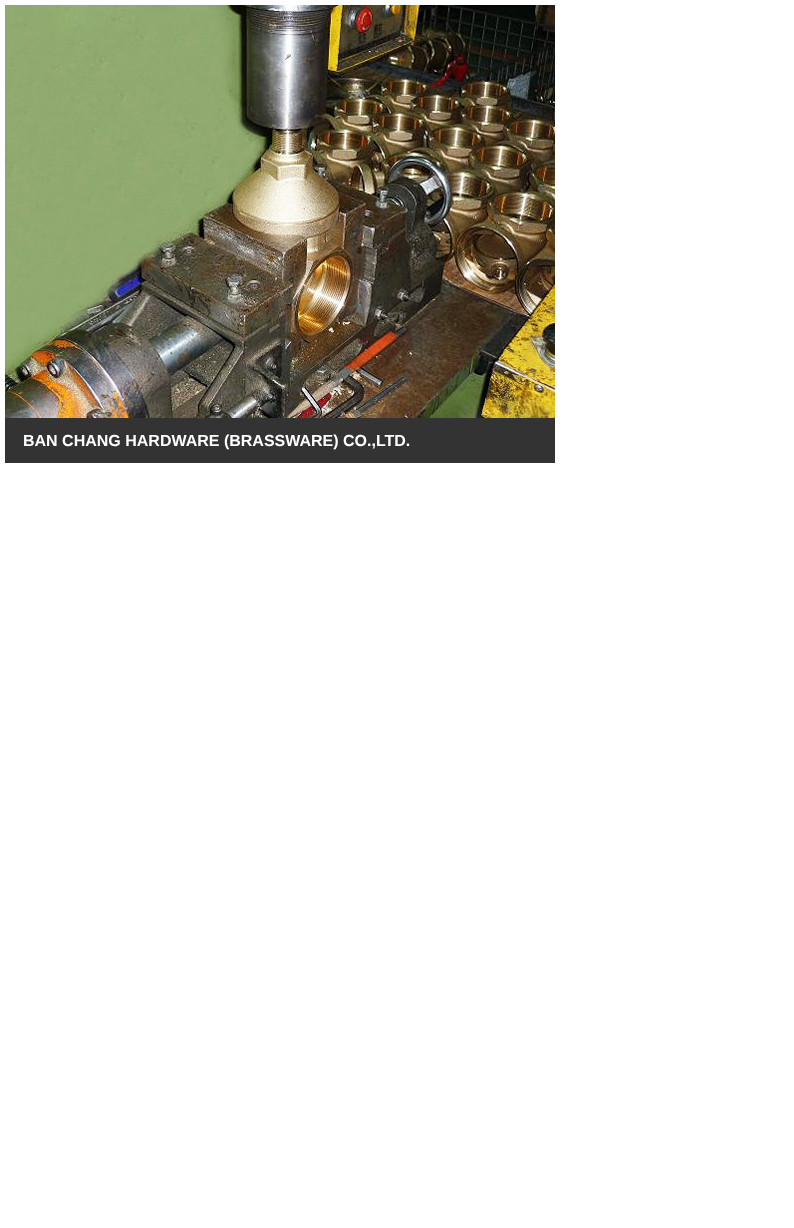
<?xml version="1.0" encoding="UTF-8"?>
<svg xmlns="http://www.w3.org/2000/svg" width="794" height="1228">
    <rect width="100%" height="100%" fill="#FFFFFF"/>
    <image x="5" y="5" width="550" height="413" href="img_01.png"/>
    <rect x="5" y="418" width="550" height="45" fill="#333333"/>
    <text x="23" y="446" font-family="Liberation Sans" font-size="16" font-weight="700" fill="#FFFFFF">BAN CHANG HARDWARE (BRASSWARE) CO.,LTD.</text>
</svg>
